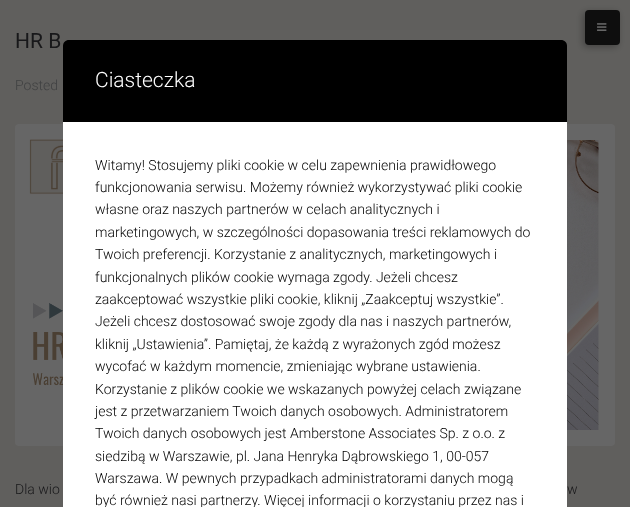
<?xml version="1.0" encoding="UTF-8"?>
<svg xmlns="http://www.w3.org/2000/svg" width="630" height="507">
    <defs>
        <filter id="blur1" x="-50%" y="-200%" width="200%" height="500%"><feGaussianBlur stdDeviation="3.5"/></filter>
    </defs>
    <rect width="100%" height="100%" fill="#605F5D"/>
    <text x="15" y="48" font-family="Roboto" font-size="21" fill="#18181A">HR B</text>
    <text x="15" y="90" font-family="Roboto" font-size="14" font-weight="300" fill="#404142">Posted</text>
    <image x="15" y="124" width="600" height="322" href="img_01.png"/>
    <text x="15" y="494" font-family="Roboto" font-size="14" font-weight="300" fill="#18181A">Dla wio</text>
    <text x="567" y="494" font-family="Roboto" font-size="14" font-weight="300" fill="#18181A">w</text>
    <rect x="583" y="12" width="35" height="35" rx="4" fill="#000000" fill-opacity="0.3" filter="url(#blur1)"/>
    <rect x="585" y="10" width="35" height="35" rx="4" fill="#0E0E0E"/>
    <image x="597" y="23" width="10" height="8" href="img_02.png"/>
    <path d="M 69 40 H 561 C 564.5 40 567 42.5 567 46 V 122 H 63 V 46 C 63 42.5 65.5 40 69 40 Z" fill="#000000"/>
    <text x="95" y="87" font-family="Roboto" font-size="21" font-weight="300" fill="#FFFFFF">Ciasteczka</text>
    <rect x="63" y="122" width="504" height="385" fill="#FFFFFF"/>
    <text font-family="Roboto" font-size="14" font-weight="300" fill="#000000">
        <tspan x="95" y="170">Witamy! Stosujemy pliki cookie w celu zapewnienia prawidłowego</tspan>
        <tspan x="95" y="192">funkcjonowania serwisu. Możemy również wykorzystywać pliki cookie</tspan>
        <tspan x="95" y="214">własne oraz naszych partnerów w celach analitycznych i</tspan>
        <tspan x="95" y="237">marketingowych, w szczególności dopasowania treści reklamowych do</tspan>
        <tspan x="95" y="259">Twoich preferencji. Korzystanie z analitycznych, marketingowych i</tspan>
        <tspan x="95" y="282">funkcjonalnych plików cookie wymaga zgody. Jeżeli chcesz</tspan>
        <tspan x="95" y="304">zaakceptować wszystkie pliki cookie, kliknij „Zaakceptuj wszystkie”.</tspan>
        <tspan x="95" y="326">Jeżeli chcesz dostosować swoje zgody dla nas i naszych partnerów,</tspan>
        <tspan x="95" y="349">kliknij „Ustawienia”. Pamiętaj, że każdą z wyrażonych zgód możesz</tspan>
        <tspan x="95" y="371">wycofać w każdym momencie, zmieniając wybrane ustawienia.</tspan>
        <tspan x="95" y="394">Korzystanie z plików cookie we wskazanych powyżej celach związane</tspan>
        <tspan x="95" y="416">jest z przetwarzaniem Twoich danych osobowych. Administratorem</tspan>
        <tspan x="95" y="438">Twoich danych osobowych jest Amberstone Associates Sp. z o.o. z</tspan>
        <tspan x="95" y="461">siedzibą w Warszawie, pl. Jana Henryka Dąbrowskiego 1, 00-057</tspan>
        <tspan x="95" y="483">Warszawa. W pewnych przypadkach administratorami danych mogą</tspan>
        <tspan x="95" y="505">być również nasi partnerzy. Więcej informacji o korzystaniu przez nas i</tspan>
    </text>
</svg>
